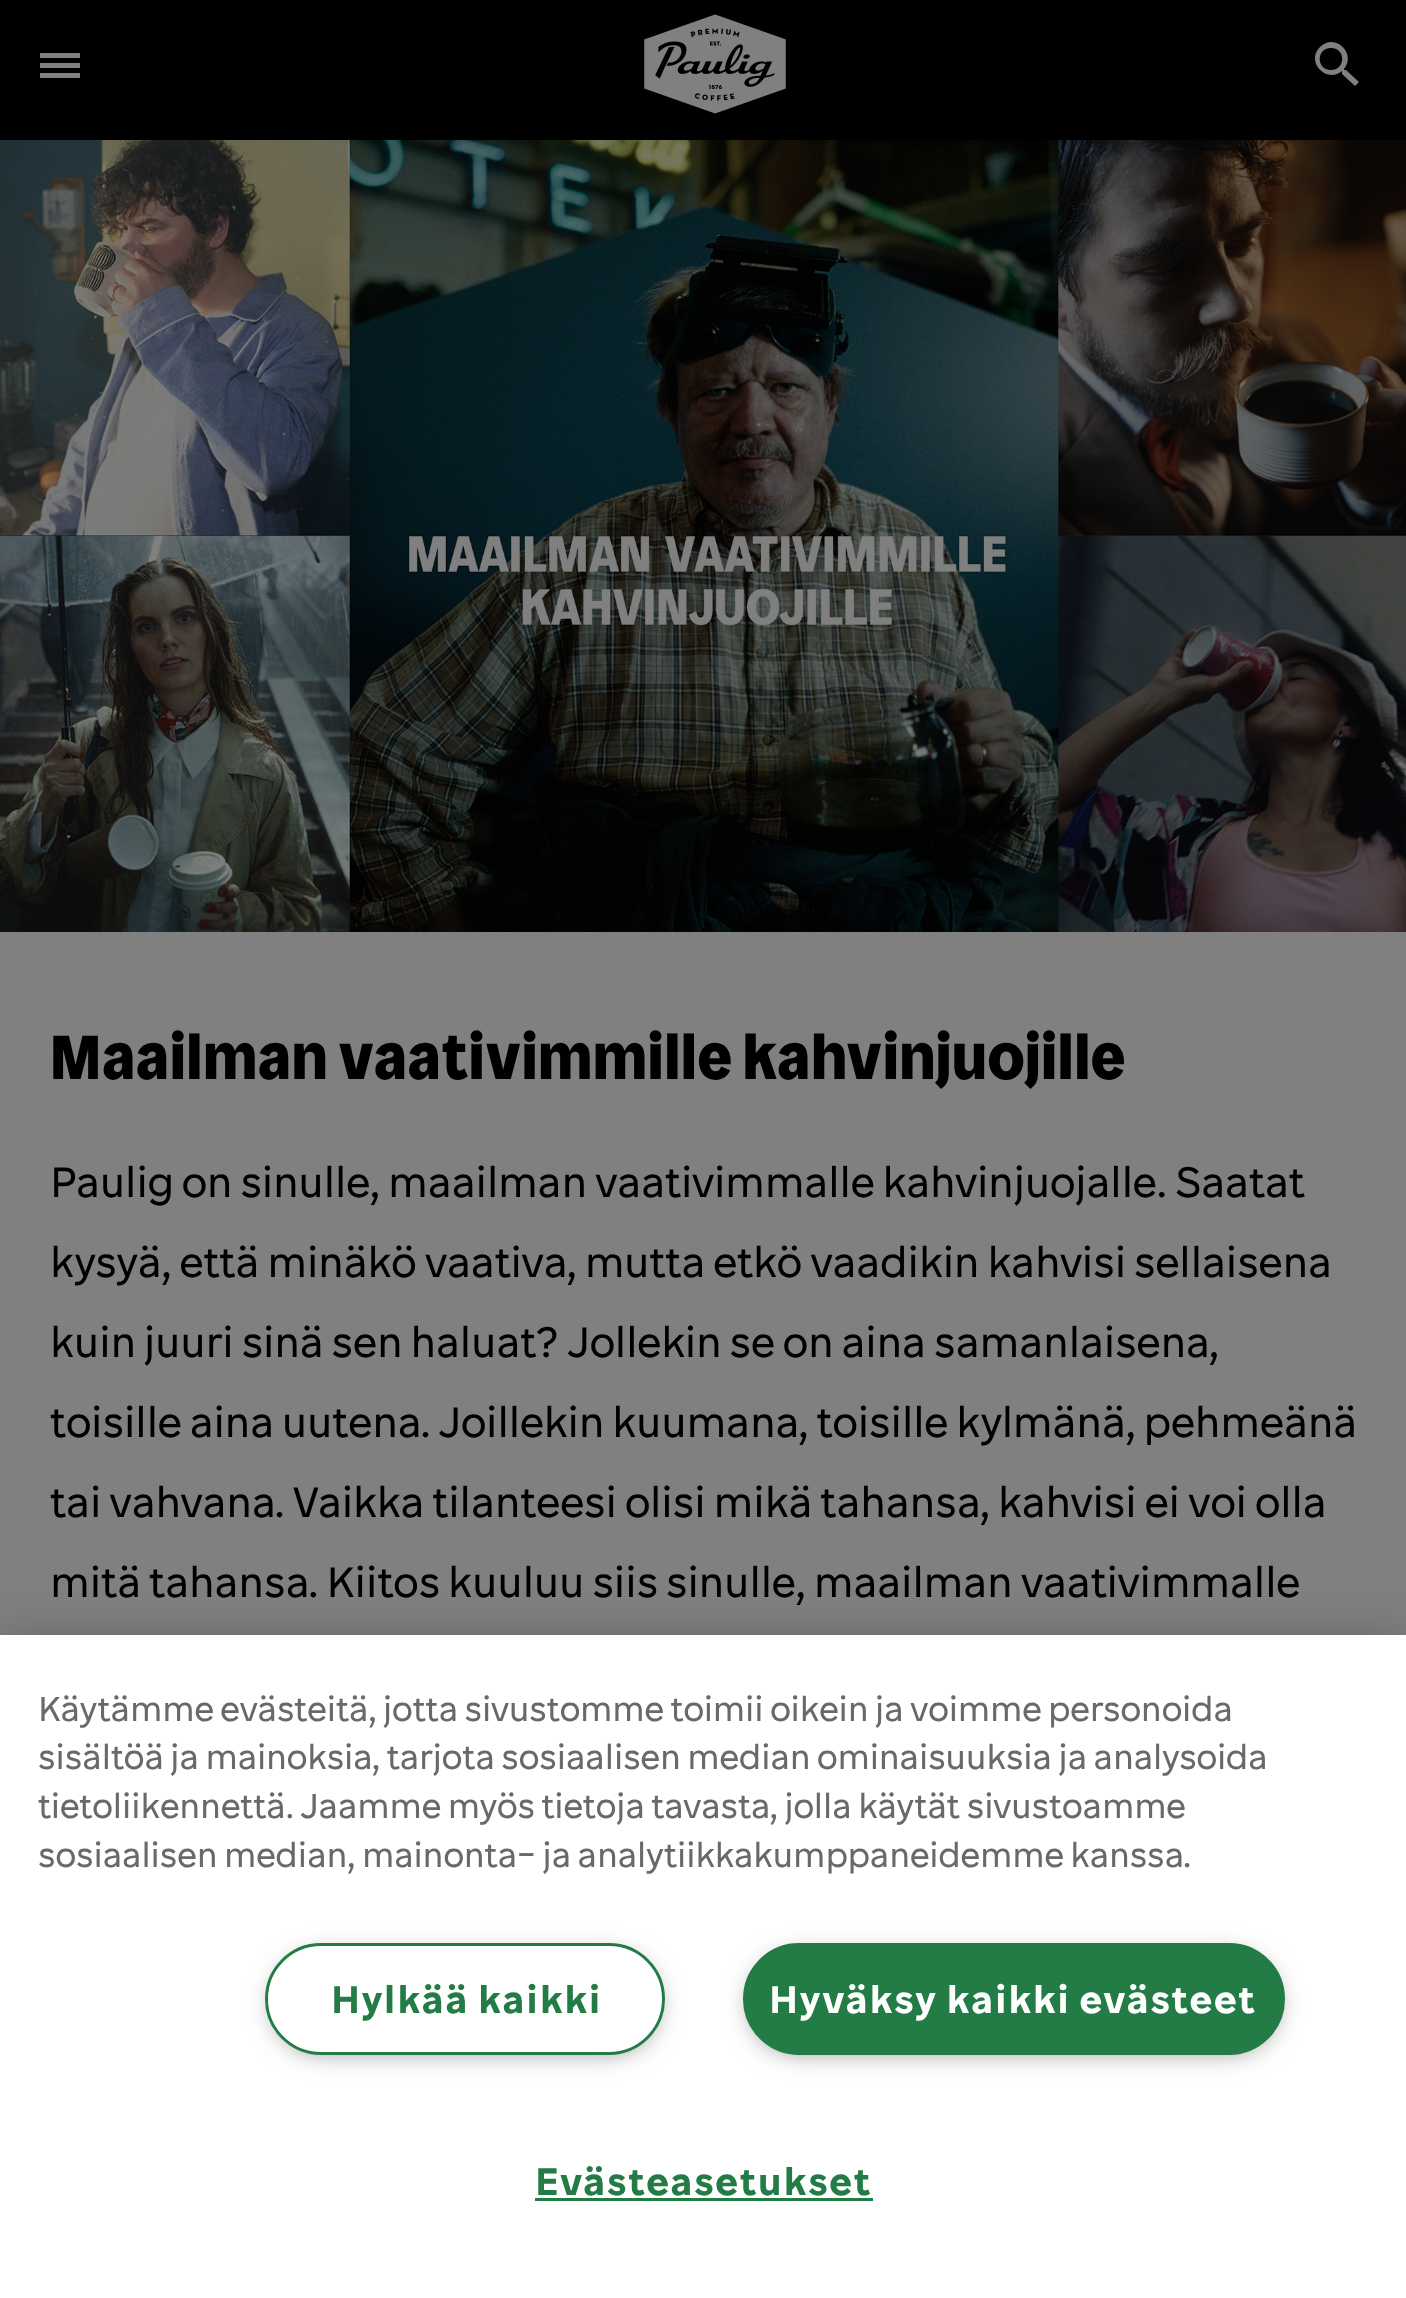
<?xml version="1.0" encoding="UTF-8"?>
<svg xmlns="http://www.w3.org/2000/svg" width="1406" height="2298">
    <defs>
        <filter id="blur1" x="-50%" y="-200%" width="200%" height="500%"><feGaussianBlur stdDeviation="22.5"/></filter>
        <filter id="blur2" x="-50%" y="-200%" width="200%" height="500%"><feGaussianBlur stdDeviation="12.5"/></filter>
    </defs>
    <rect width="100%" height="100%" fill="#808080"/>
    <rect x="0" y="0" width="1406" height="140" fill="#000000"/>
    <rect x="40" y="53" width="40" height="5" fill="#808080"/>
    <rect x="40" y="63" width="40" height="5" fill="#808080"/>
    <rect x="40" y="73" width="40" height="5" fill="#808080"/>
    <image x="644" y="14" width="142" height="100" href="img_01.png"/>
    <path d="M 1346 70 H 1344 V 69 C 1357 54 1335 32 1320 47 C 1305 62 1327 84 1342 71 V 72 V 74 L 1355 86 L 1359 82 Z M 1331 70 C 1316 70 1316 48 1331 48 C 1346 48 1346 70 1331 70 Z" fill="#808080"/>
    <image x="0" y="140" width="1406" height="792" href="img_02.png"/>
    <text x="50" y="1079" font-family="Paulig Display" font-size="60" font-weight="700" letter-spacing="1" fill="#000000">Maailman vaativimmille kahvinjuojille</text>
    <text x="50" y="1197" font-family="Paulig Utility" font-size="40" fill="#000000">Paulig on sinulle, maailman vaativimmalle kahvinjuojalle. Saatat</text>
    <text x="50" y="1277" font-family="Paulig Utility" font-size="40" fill="#000000">kysyä, että minäkö vaativa, mutta etkö vaadikin kahvisi sellaisena</text>
    <text x="50" y="1357" font-family="Paulig Utility" font-size="40" fill="#000000">kuin juuri sinä sen haluat? Jollekin se on aina samanlaisena,</text>
    <text x="50" y="1437" font-family="Paulig Utility" font-size="40" fill="#000000">toisille aina uutena. Joillekin kuumana, toisille kylmänä, pehmeänä</text>
    <text x="50" y="1517" font-family="Paulig Utility" font-size="40" fill="#000000">tai vahvana. Vaikka tilanteesi olisi mikä tahansa, kahvisi ei voi olla</text>
    <text x="50" y="1597" font-family="Paulig Utility" font-size="40" fill="#000000">mitä tahansa. Kiitos kuuluu siis sinulle, maailman vaativimmalle</text>
    <rect x="0" y="1635" width="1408" height="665" fill="#000000" fill-opacity="0.2" filter="url(#blur1)"/>
    <rect x="0" y="1635" width="1406" height="663" fill="#FFFFFF"/>
    <text font-family="Paulig Utility" font-size="32.5" fill="#696969">
        <tspan x="38" y="1721">Käytämme evästeitä, jotta sivustomme toimii oikein ja voimme personoida</tspan>
        <tspan x="38" y="1769">sisältöä ja mainoksia, tarjota sosiaalisen median ominaisuuksia ja analysoida</tspan>
        <tspan x="38" y="1818">tietoliikennettä. Jaamme myös tietoja tavasta, jolla käytät sivustoamme</tspan>
        <tspan x="38" y="1867">sosiaalisen median, mainonta- ja analytiikkakumppaneidemme kanssa.</tspan>
    </text>
    <rect x="273" y="1955" width="385" height="98" rx="49" fill="#999999" filter="url(#blur2)"/>
    <rect x="266.5" y="1944.5" width="397" height="109" rx="54.5" fill="#FFFFFF" stroke="#237B45" stroke-width="3"/>
    <text x="331" y="2013" font-family="Paulig Utility" font-size="36" font-weight="600" letter-spacing="1.8" fill="#237B45">Hylkää kaikki</text>
    <rect x="750" y="1955" width="528" height="98" rx="49" fill="#999999" filter="url(#blur2)"/>
    <rect x="744.5" y="1944.5" width="539" height="109" rx="54.5" fill="#237B45" stroke="#237B45" stroke-width="3"/>
    <text x="769" y="2013" font-family="Paulig Utility" font-size="36" font-weight="600" letter-spacing="1.8" fill="#FFFFFF">Hyväksy kaikki evästeet</text>
    <text x="535" y="2195" font-family="Paulig Utility" font-size="36" font-weight="600" letter-spacing="1.8" fill="#237B45">Evästeasetukset</text>
    <rect x="535" y="2198" width="338" height="3" fill="#237B45"/>
</svg>
